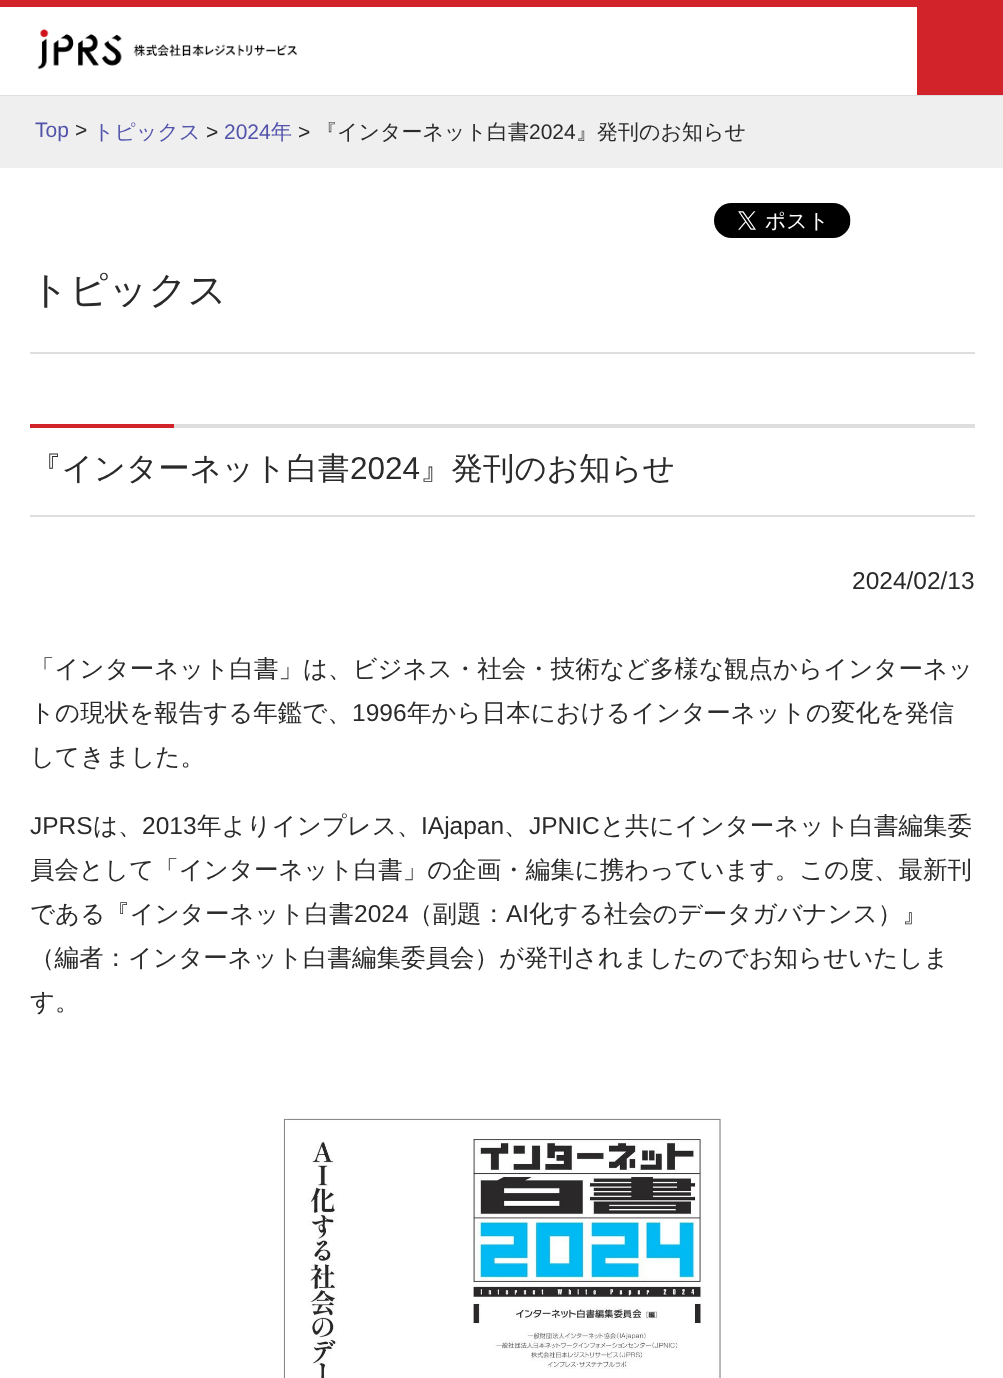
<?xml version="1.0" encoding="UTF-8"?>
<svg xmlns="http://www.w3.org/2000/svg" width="1003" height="1378">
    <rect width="100%" height="100%" fill="#FFFFFF"/>
    <rect x="0" y="0" width="1003" height="7" fill="#D2232A"/>
    <rect x="0" y="95" width="1003" height="1" fill="#DEDEDE"/>
    <image x="37" y="29" width="261" height="41" href="img_01.png"/>
    <rect x="917" y="7" width="86" height="88" fill="#D2232A"/>
    <rect x="0" y="96" width="1003" height="72" fill="#EFEFEF"/>
    <text x="35" y="137" font-family="Liberation Sans" font-size="21" fill="#5253AB">Top</text>
    <text x="75" y="137" font-family="Liberation Sans" font-size="21" fill="#2A2A2A">&gt;</text>
    <text x="93" y="139" font-family="WenQuanYi Zen Hei" font-size="21" font-weight="500" fill="#5253AB">トピックス</text>
    <text x="206" y="139" font-family="Liberation Sans" font-size="21" fill="#2A2A2A">&gt;</text>
    <text x="224" y="139" font-family="Liberation Sans" font-size="21" fill="#5253AB">2024</text>
    <text x="271" y="139" font-family="WenQuanYi Zen Hei" font-size="21" font-weight="500" fill="#5253AB">年</text>
    <text x="298" y="139" font-family="Liberation Sans" font-size="21" fill="#2A2A2A">&gt;</text>
    <text x="316" y="139" font-family="WenQuanYi Zen Hei" font-size="21" font-weight="500" fill="#2A2A2A">『インターネット白書</text>
    <text x="529" y="139" font-family="Liberation Sans" font-size="21" fill="#2A2A2A">2024</text>
    <text x="576" y="139" font-family="WenQuanYi Zen Hei" font-size="21" font-weight="500" fill="#2A2A2A">』発刊のお知らせ</text>
    <image x="714" y="203" width="137" height="35" href="img_02.png"/>
    <rect x="30" y="352" width="945" height="2" fill="#DEDEDE"/>
    <text x="30" y="303" font-family="WenQuanYi Zen Hei" font-size="38.5" font-weight="500" fill="#2A2A2A">トピックス</text>
    <rect x="174" y="424" width="801" height="4" fill="#DEDEDE"/>
    <rect x="30" y="515" width="945" height="2" fill="#DEDEDE"/>
    <rect x="30" y="424" width="144" height="4" fill="#D2232A"/>
    <text x="30" y="479" font-family="WenQuanYi Zen Hei" font-size="31.5" font-weight="500" fill="#2A2A2A">『インターネット白書</text>
    <text x="350" y="479" font-family="Liberation Sans" font-size="31.5" fill="#2A2A2A">2024</text>
    <text x="420" y="479" font-family="WenQuanYi Zen Hei" font-size="31.5" font-weight="500" fill="#2A2A2A">』発刊のお知らせ</text>
    <text x="852" y="589" font-family="Liberation Sans" font-size="24.5" fill="#2A2A2A">2024/02/13</text>
    <text font-family="WenQuanYi Zen Hei" font-size="24.5" font-weight="500" fill="#2A2A2A">
        <tspan x="30" y="677">「インターネット白書」は、ビジネス・社会・技術など多様な観点からインターネッ</tspan>
        <tspan x="30" y="721">トの現状を報告する年鑑で、</tspan>
    </text>
    <text x="352" y="721" font-family="Liberation Sans" font-size="24.5" fill="#2A2A2A">1996</text>
    <text x="407" y="721" font-family="WenQuanYi Zen Hei" font-size="24.5" font-weight="500" fill="#2A2A2A">年から日本におけるインターネットの変化を発信</text>
    <text x="30" y="765" font-family="WenQuanYi Zen Hei" font-size="24.5" font-weight="500" fill="#2A2A2A">してきました。</text>
    <text x="30" y="834" font-family="Liberation Sans" font-size="24.5" fill="#2A2A2A">JPRS</text>
    <text x="93" y="834" font-family="WenQuanYi Zen Hei" font-size="24.5" font-weight="500" fill="#2A2A2A">は、</text>
    <text x="142" y="834" font-family="Liberation Sans" font-size="24.5" fill="#2A2A2A">2013</text>
    <text x="197" y="834" font-family="WenQuanYi Zen Hei" font-size="24.5" font-weight="500" fill="#2A2A2A">年よりインプレス、</text>
    <text x="421" y="834" font-family="Liberation Sans" font-size="24.5" fill="#2A2A2A">IAjapan</text>
    <text x="504" y="834" font-family="WenQuanYi Zen Hei" font-size="24.5" font-weight="500" fill="#2A2A2A">、</text>
    <text x="529" y="834" font-family="Liberation Sans" font-size="24.5" fill="#2A2A2A">JPNIC</text>
    <text x="600" y="834" font-family="WenQuanYi Zen Hei" font-size="24.5" font-weight="500" fill="#2A2A2A">と共にインターネット白書編集委</text>
    <text font-family="WenQuanYi Zen Hei" font-size="24.5" font-weight="500" fill="#2A2A2A">
        <tspan x="30" y="878">員会として「インターネット白書」の企画・編集に携わっています。この度、最新刊</tspan>
        <tspan x="30" y="922">である『インターネット白書</tspan>
    </text>
    <text x="354" y="922" font-family="Liberation Sans" font-size="24.5" fill="#2A2A2A">2024</text>
    <text x="408" y="922" font-family="WenQuanYi Zen Hei" font-size="24.5" font-weight="500" fill="#2A2A2A">（副題：</text>
    <text x="506" y="922" font-family="Liberation Sans" font-size="24.5" fill="#2A2A2A">AI</text>
    <text x="529" y="922" font-family="WenQuanYi Zen Hei" font-size="24.5" font-weight="500" fill="#2A2A2A">化する社会のデータガバナンス）』</text>
    <text font-family="WenQuanYi Zen Hei" font-size="24.5" font-weight="500" fill="#2A2A2A">
        <tspan x="30" y="966">（編者：インターネット白書編集委員会）が発刊されましたのでお知らせいたしま</tspan>
        <tspan x="30" y="1010">す。</tspan>
    </text>
    <image x="283" y="1118" width="438" height="260" href="img_03.png"/>
</svg>
